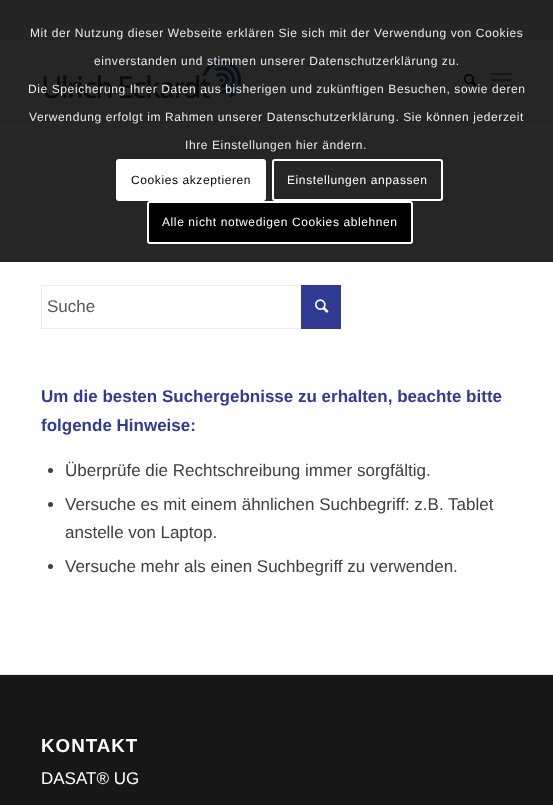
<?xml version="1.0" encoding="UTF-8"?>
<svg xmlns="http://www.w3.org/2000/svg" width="553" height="805">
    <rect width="100%" height="100%" fill="#FFFFFF"/>
    <rect x="0" y="0" width="553" height="39" fill="#F8F8F8"/>
    <rect x="0" y="39" width="553" height="1" fill="#EBEBEB"/>
    <image x="43" y="60" width="198" height="39" href="img_01.png"/>
    <image x="464" y="74" width="13" height="13" href="img_02.png"/>
    <rect x="491" y="79" width="21" height="2" rx="1" fill="#969696"/>
    <rect x="491" y="73" width="21" height="2" rx="1" fill="#969696"/>
    <rect x="491" y="85" width="21" height="2" rx="1" fill="#969696"/>
    <rect x="0" y="120" width="553" height="2" fill="#EBEBEB"/>
    <rect x="0" y="0" width="553" height="262" fill="#000000" fill-opacity="0.85"/>
    <text x="30" y="37" font-family="Liberation Sans" font-size="12" letter-spacing="0.6" fill="#E9E9E9">Mit der Nutzung dieser Webseite erklären Sie sich mit der Verwendung von Cookies</text>
    <text x="94" y="65" font-family="Liberation Sans" font-size="12" letter-spacing="0.6" fill="#E9E9E9">einverstanden und stimmen unserer Datenschutzerklärung zu.</text>
    <text x="28" y="93" font-family="Liberation Sans" font-size="12" letter-spacing="0.6" fill="#E9E9E9">Die Speicherung Ihrer Daten aus bisherigen und zukünftigen Besuchen, sowie deren</text>
    <text x="29" y="121" font-family="Liberation Sans" font-size="12" letter-spacing="0.6" fill="#E9E9E9">Verwendung erfolgt im Rahmen unserer Datenschutzerklärung. Sie können jederzeit</text>
    <text x="185" y="149" font-family="Liberation Sans" font-size="12" letter-spacing="0.6" fill="#E9E9E9">Ihre Einstellungen hier ändern.</text>
    <rect x="116" y="159" width="150" height="42" rx="3" fill="#FFFFFF"/>
    <text x="131" y="184" font-family="Liberation Sans" font-size="12" letter-spacing="0.6" fill="#000000">Cookies akzeptieren</text>
    <rect x="273" y="160" width="169" height="40" rx="2" fill="none" stroke="#FFFFFF" stroke-width="2"/>
    <text x="287" y="184" font-family="Liberation Sans" font-size="12" letter-spacing="0.6" fill="#FFFFFF">Einstellungen anpassen</text>
    <rect x="148" y="202" width="264" height="41" rx="2" fill="#000000" stroke="#FFFFFF" stroke-width="2"/>
    <text x="162" y="226" font-family="Liberation Sans" font-size="12" letter-spacing="0.6" fill="#FFFFFF">Alle nicht notwedigen Cookies ablehnen</text>
    <rect x="41.5" y="285.5" width="299" height="43" fill="none" stroke="#EBEBEB"/>
    <text x="47" y="312" font-family="Liberation Sans" font-size="17" fill="#575757">Suche</text>
    <rect x="301" y="285" width="40" height="44" fill="#313B94"/>
    <image x="315" y="299" width="14" height="14" href="img_03.png"/>
    <text font-family="Liberation Sans" font-size="17" font-weight="700" fill="#313B94">
        <tspan x="41" y="402">Um die besten Suchergebnisse zu erhalten, beachte bitte</tspan>
        <tspan x="41" y="431">folgende Hinweise:</tspan>
    </text>
    <circle cx="50.5" cy="470.5" r="2.5" fill="#404040"/>
    <text x="65" y="476" font-family="Liberation Sans" font-size="17" fill="#404040">Überprüfe die Rechtschreibung immer sorgfältig.</text>
    <circle cx="50.5" cy="504.5" r="2.5" fill="#404040"/>
    <text font-family="Liberation Sans" font-size="17" fill="#404040">
        <tspan x="65" y="510">Versuche es mit einem ähnlichen Suchbegriff: z.B. Tablet</tspan>
        <tspan x="65" y="538">anstelle von Laptop.</tspan>
    </text>
    <circle cx="50.5" cy="566.5" r="2.5" fill="#404040"/>
    <text x="65" y="572" font-family="Liberation Sans" font-size="17" fill="#404040">Versuche mehr als einen Suchbegriff zu verwenden.</text>
    <rect x="0" y="675" width="553" height="130" fill="#171717"/>
    <rect x="0" y="674" width="553" height="1" fill="#EBEBEB"/>
    <text x="41" y="752" font-family="Liberation Sans" font-size="18.75" font-weight="700" letter-spacing="1" fill="#FFFFFF">KONTAKT</text>
    <text x="41" y="784" font-family="Liberation Sans" font-size="17" fill="#FFFFFF">DASAT® UG</text>
</svg>
